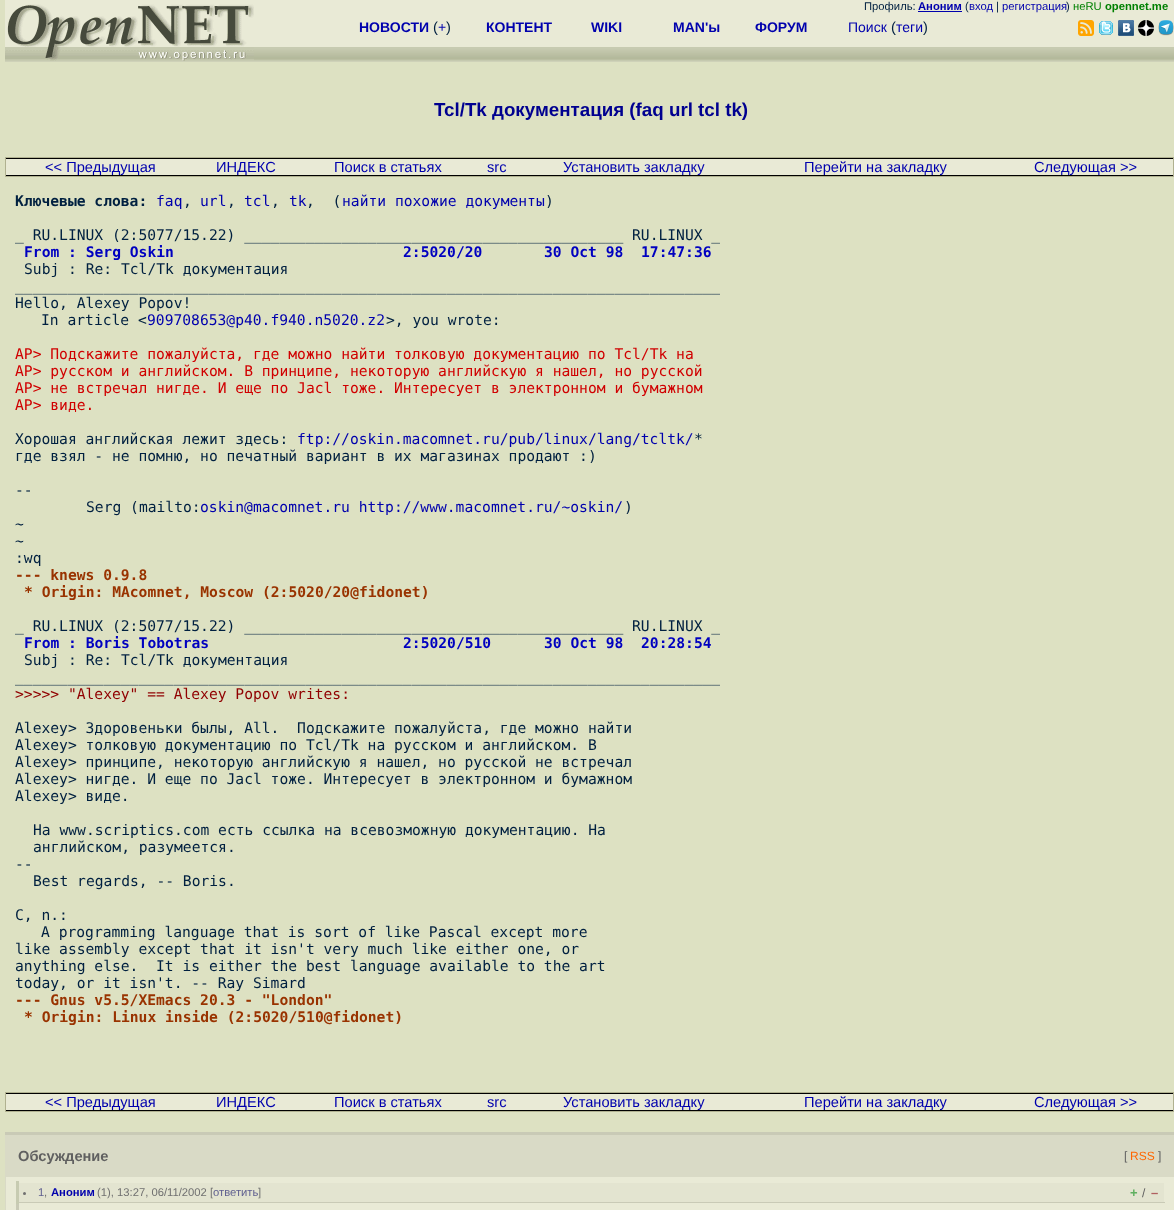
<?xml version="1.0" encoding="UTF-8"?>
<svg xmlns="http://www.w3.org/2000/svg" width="1174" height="1210">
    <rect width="100%" height="100%" fill="#DDE1C2"/>
    <rect x="5" y="0" width="1169" height="2" fill="#E9EAD6"/>
    <rect x="5" y="2" width="1169" height="45" fill="#E9EAD6"/>
    <text x="864" y="10" font-family="Liberation Sans" font-size="11.25" fill="#002040">Профиль:</text>
    <text x="918" y="10" font-family="Liberation Sans" font-size="11.25" font-weight="700" fill="#0000AD">Аноним</text>
    <rect x="918" y="11" width="44" height="1" fill="#0000AD"/>
    <text x="965" y="10" font-family="Liberation Sans" font-size="11.25" fill="#002040">(</text>
    <text x="969" y="10" font-family="Liberation Sans" font-size="11.25" fill="#0000AD">вход</text>
    <text x="996" y="10" font-family="Liberation Sans" font-size="11.25" fill="#002040">|</text>
    <text x="1002" y="10" font-family="Liberation Sans" font-size="11.25" fill="#0000AD">регистрация</text>
    <text x="1066" y="10" font-family="Liberation Sans" font-size="11.25" fill="#002040">)</text>
    <text x="1073" y="10" font-family="Liberation Sans" font-size="11.25" fill="#008000">неRU</text>
    <text x="1105" y="10" font-family="Liberation Sans" font-size="11.25" font-weight="700" fill="#008000">opennet.me</text>
    <image x="5" y="47" width="283" height="15" href="img_01.png"/>
    <image x="5" y="4" width="249" height="57" href="img_02.png"/>
    <image x="356" y="47" width="584" height="15" href="img_03.png"/>
    <text x="359" y="32" font-family="Liberation Sans" font-size="14" font-weight="700" fill="#0000AD">НОВОСТИ</text>
    <text x="433" y="32" font-family="Liberation Sans" font-size="14.65" fill="#002040">(</text>
    <text x="438" y="32" font-family="Liberation Sans" font-size="14" fill="#0000AD">+</text>
    <text x="446" y="32" font-family="Liberation Sans" font-size="14.65" fill="#002040">)</text>
    <text x="486" y="32" font-family="Liberation Sans" font-size="14" font-weight="700" fill="#0000AD">КОНТЕНТ</text>
    <text x="591" y="32" font-family="Liberation Sans" font-size="14" font-weight="700" fill="#0000AD">WIKI</text>
    <text x="673" y="32" font-family="Liberation Sans" font-size="14" font-weight="700" fill="#0000AD">MAN'ы</text>
    <text x="755" y="32" font-family="Liberation Sans" font-size="14" font-weight="700" fill="#0000AD">ФОРУМ</text>
    <text x="848" y="32" font-family="Liberation Sans" font-size="14" fill="#0000AD">Поиск</text>
    <text x="891" y="32" font-family="Liberation Sans" font-size="14.65" fill="#002040">(</text>
    <text x="896" y="32" font-family="Liberation Sans" font-size="14" fill="#0000AD">теги</text>
    <text x="923" y="32" font-family="Liberation Sans" font-size="14.65" fill="#002040">)</text>
    <image x="940" y="47" width="234" height="15" href="img_04.png"/>
    <image x="1078" y="20" width="16" height="16" href="img_05.png"/>
    <image x="1099" y="21" width="14" height="14" href="img_06.png"/>
    <image x="1118" y="20" width="16" height="16" href="img_07.png"/>
    <image x="1138" y="20" width="16" height="16" href="img_08.png"/>
    <image x="1158" y="20" width="16" height="16" href="img_09.png"/>
    <image x="288" y="47" width="68" height="15" href="img_10.png"/>
    <text x="434" y="116" font-family="Liberation Sans" font-size="18.75" font-weight="700" fill="#000090">Tcl/Tk документация (faq url tcl tk)</text>
    <rect x="5" y="157" width="1169" height="20" fill="#B0B190"/>
    <rect x="6" y="159" width="1167" height="16" fill="#E9EAD6"/>
    <rect x="6" y="158" width="1167" height="1" fill="#000000"/>
    <rect x="6" y="175" width="1167" height="1" fill="#000000"/>
    <text x="45" y="172" font-family="Liberation Sans" font-size="14.65" fill="#0000AD">&lt;&lt; Предыдущая</text>
    <text x="216" y="172" font-family="Liberation Sans" font-size="14.65" fill="#0000AD">ИНДЕКС</text>
    <text x="334" y="172" font-family="Liberation Sans" font-size="14.65" fill="#0000AD">Поиск в статьях</text>
    <text x="487" y="172" font-family="Liberation Sans" font-size="14.65" fill="#0000AD">src</text>
    <text x="563" y="172" font-family="Liberation Sans" font-size="14.65" fill="#0000AD">Установить закладку</text>
    <text x="804" y="172" font-family="Liberation Sans" font-size="14.65" fill="#0000AD">Перейти на закладку</text>
    <text x="1034" y="172" font-family="Liberation Sans" font-size="14.65" fill="#0000AD">Следующая &gt;&gt;</text>
    <text x="15" y="206" font-family="DejaVu Sans Mono" font-size="14.65" font-weight="700" fill="#002040">Ключевые слова:</text>
    <text x="156" y="206" font-family="DejaVu Sans Mono" font-size="14.65" fill="#0000AD">faq</text>
    <text x="183" y="206" font-family="DejaVu Sans Mono" font-size="14.65" fill="#002040">,</text>
    <text x="200" y="206" font-family="DejaVu Sans Mono" font-size="14.65" fill="#0000AD">url</text>
    <text x="227" y="206" font-family="DejaVu Sans Mono" font-size="14.65" fill="#002040">,</text>
    <text x="244" y="206" font-family="DejaVu Sans Mono" font-size="14.65" fill="#0000AD">tcl</text>
    <text x="271" y="206" font-family="DejaVu Sans Mono" font-size="14.65" fill="#002040">,</text>
    <text x="289" y="206" font-family="DejaVu Sans Mono" font-size="14.65" fill="#0000AD">tk</text>
    <text x="306" y="206" font-family="DejaVu Sans Mono" font-size="14.65" fill="#002040" xml:space="preserve">,  (</text>
    <text x="342" y="206" font-family="DejaVu Sans Mono" font-size="14.65" fill="#0000AD">найти похожие документы</text>
    <text x="545" y="206" font-family="DejaVu Sans Mono" font-size="14.65" fill="#002040">)</text>
    <text x="15" y="240" font-family="DejaVu Sans Mono" font-size="14.65" fill="#002040">_ RU.LINUX (2:5077/15.22) ___________________________________________ RU.LINUX _</text>
    <text x="24" y="257" font-family="DejaVu Sans Mono" font-size="14.65" font-weight="700" fill="#0000C0" xml:space="preserve">From : Serg Oskin                          2:5020/20       30 Oct 98  17:47:36</text>
    <text x="24" y="274" font-family="DejaVu Sans Mono" font-size="14.65" fill="#002040">Subj : Re: Tcl/Tk документация</text>
    <text font-family="DejaVu Sans Mono" font-size="14.65" fill="#002040">
        <tspan x="15" y="291">________________________________________________________________________________</tspan>
        <tspan x="15" y="308">Hello, Alexey Popov!</tspan>
    </text>
    <text x="41" y="325" font-family="DejaVu Sans Mono" font-size="14.65" fill="#002040">In article &lt;</text>
    <text x="147" y="325" font-family="DejaVu Sans Mono" font-size="14.65" fill="#0000AD">909708653@p40.f940.n5020.z2</text>
    <text x="386" y="325" font-family="DejaVu Sans Mono" font-size="14.65" fill="#002040">&gt;, you wrote:</text>
    <text font-family="DejaVu Sans Mono" font-size="14.65" fill="#D00000">
        <tspan x="15" y="359">AP&gt; Подскажите пожалуйста, где можно найти толковую документацию по Tcl/Tk на</tspan>
        <tspan x="15" y="376">AP&gt; русском и английском. В принципе, некоторую английскую я нашел, но русской</tspan>
        <tspan x="15" y="393">AP&gt; не встречал нигде. И еще по Jacl тоже. Интересует в электронном и бумажном</tspan>
        <tspan x="15" y="410">AP&gt; виде.</tspan>
    </text>
    <text x="15" y="444" font-family="DejaVu Sans Mono" font-size="14.65" fill="#002040">Хорошая английская лежит здесь:</text>
    <text x="297" y="444" font-family="DejaVu Sans Mono" font-size="14.65" fill="#0000AD">ftp://oskin.macomnet.ru/pub/linux/lang/tcltk/</text>
    <text x="694" y="444" font-family="DejaVu Sans Mono" font-size="14.65" fill="#002040">*</text>
    <text x="15" y="461" font-family="DejaVu Sans Mono" font-size="14.65" fill="#002040">где взял - не помню, но печатный вариант в их магазинах продают :)</text>
    <text x="15" y="495" font-family="DejaVu Sans Mono" font-size="14.65" fill="#002040">--</text>
    <text x="86" y="512" font-family="DejaVu Sans Mono" font-size="14.65" fill="#002040">Serg (mailto:</text>
    <text x="200" y="512" font-family="DejaVu Sans Mono" font-size="14.65" fill="#0000AD">oskin@macomnet.ru http://www.macomnet.ru/~oskin/</text>
    <text x="624" y="512" font-family="DejaVu Sans Mono" font-size="14.65" fill="#002040">)</text>
    <text font-family="DejaVu Sans Mono" font-size="14.65" fill="#002040">
        <tspan x="15" y="529">~</tspan>
        <tspan x="15" y="546">~</tspan>
        <tspan x="15" y="563">:wq</tspan>
    </text>
    <text x="15" y="580" font-family="DejaVu Sans Mono" font-size="14.65" font-weight="700" fill="#993300">--- knews 0.9.8</text>
    <text x="24" y="597" font-family="DejaVu Sans Mono" font-size="14.65" font-weight="700" fill="#993300">* Origin: MAcomnet, Moscow (2:5020/20@fidonet)</text>
    <text x="15" y="631" font-family="DejaVu Sans Mono" font-size="14.65" fill="#002040">_ RU.LINUX (2:5077/15.22) ___________________________________________ RU.LINUX _</text>
    <text x="24" y="648" font-family="DejaVu Sans Mono" font-size="14.65" font-weight="700" fill="#0000C0" xml:space="preserve">From : Boris Tobotras                      2:5020/510      30 Oct 98  20:28:54</text>
    <text x="24" y="665" font-family="DejaVu Sans Mono" font-size="14.65" fill="#002040">Subj : Re: Tcl/Tk документация</text>
    <text x="15" y="682" font-family="DejaVu Sans Mono" font-size="14.65" fill="#002040">________________________________________________________________________________</text>
    <text x="15" y="699" font-family="DejaVu Sans Mono" font-size="14.65" fill="#900000">&gt;&gt;&gt;&gt;&gt; "Alexey" == Alexey Popov writes:</text>
    <text font-family="DejaVu Sans Mono" font-size="14.65" fill="#002040" xml:space="preserve"><tspan x="15" y="733">Alexey&gt; Здоровеньки былы, All.  Подскажите пожалуйста, где можно найти</tspan><tspan x="15" y="750">Alexey&gt; толковую документацию по Tcl/Tk на русском и английском. В</tspan><tspan x="15" y="767">Alexey&gt; принципе, некоторую английскую я нашел, но русской не встречал</tspan><tspan x="15" y="784">Alexey&gt; нигде. И еще по Jacl тоже. Интересует в электронном и бумажном</tspan><tspan x="15" y="801">Alexey&gt; виде.</tspan></text>
    <text font-family="DejaVu Sans Mono" font-size="14.65" fill="#002040">
        <tspan x="33" y="835">Hа www.scriptics.com есть ссылка на всевозможную документацию. Hа</tspan>
        <tspan x="33" y="852">английском, разумеется.</tspan>
    </text>
    <text x="15" y="869" font-family="DejaVu Sans Mono" font-size="14.65" fill="#002040">--</text>
    <text x="33" y="886" font-family="DejaVu Sans Mono" font-size="14.65" fill="#002040">Best regards, -- Boris.</text>
    <text x="15" y="920" font-family="DejaVu Sans Mono" font-size="14.65" fill="#002040">C, n.:</text>
    <text x="41" y="937" font-family="DejaVu Sans Mono" font-size="14.65" fill="#002040">A programming language that is sort of like Pascal except more</text>
    <text font-family="DejaVu Sans Mono" font-size="14.65" fill="#002040" xml:space="preserve"><tspan x="15" y="954">like assembly except that it isn't very much like either one, or</tspan><tspan x="15" y="971">anything else.  It is either the best language available to the art</tspan><tspan x="15" y="988">today, or it isn't. -- Ray Simard</tspan></text>
    <text x="15" y="1005" font-family="DejaVu Sans Mono" font-size="14.65" font-weight="700" fill="#993300">--- Gnus v5.5/XEmacs 20.3 - "London"</text>
    <text x="24" y="1022" font-family="DejaVu Sans Mono" font-size="14.65" font-weight="700" fill="#993300">* Origin: Linux inside (2:5020/510@fidonet)</text>
    <rect x="5" y="1092" width="1169" height="20" fill="#B0B190"/>
    <rect x="6" y="1094" width="1167" height="16" fill="#E9EAD6"/>
    <rect x="6" y="1093" width="1167" height="1" fill="#000000"/>
    <rect x="6" y="1110" width="1167" height="1" fill="#000000"/>
    <text x="45" y="1107" font-family="Liberation Sans" font-size="14.65" fill="#0000AD">&lt;&lt; Предыдущая</text>
    <text x="216" y="1107" font-family="Liberation Sans" font-size="14.65" fill="#0000AD">ИНДЕКС</text>
    <text x="334" y="1107" font-family="Liberation Sans" font-size="14.65" fill="#0000AD">Поиск в статьях</text>
    <text x="487" y="1107" font-family="Liberation Sans" font-size="14.65" fill="#0000AD">src</text>
    <text x="563" y="1107" font-family="Liberation Sans" font-size="14.65" fill="#0000AD">Установить закладку</text>
    <text x="804" y="1107" font-family="Liberation Sans" font-size="14.65" fill="#0000AD">Перейти на закладку</text>
    <text x="1034" y="1107" font-family="Liberation Sans" font-size="14.65" fill="#0000AD">Следующая &gt;&gt;</text>
    <rect x="5" y="1135" width="1169" height="42" fill="#D9DAC6"/>
    <rect x="5" y="1132" width="1169" height="3" fill="#C9CAB6"/>
    <text x="18" y="1161" font-family="Liberation Sans" font-size="14.65" font-weight="700" fill="#606060">Обсуждение</text>
    <text x="1124" y="1160" font-family="Liberation Sans" font-size="12" fill="#606060">[</text>
    <text x="1130" y="1160" font-family="Liberation Sans" font-size="12" fill="#FF6600">RSS</text>
    <text x="1158" y="1160" font-family="Liberation Sans" font-size="12" fill="#606060">]</text>
    <rect x="6" y="1177" width="1168" height="33" fill="#E9EAD6"/>
    <rect x="5" y="1177" width="1" height="33" fill="#D9DAC6"/>
    <rect x="19" y="1183" width="1145" height="19" fill="#E3E4D0"/>
    <rect x="17" y="1202" width="1148" height="1" fill="#C9CAB6"/>
    <rect x="16" y="1201" width="3" height="9" fill="#C9CAB6"/>
    <rect x="16" y="1181" width="3" height="23" fill="#C7CBB1"/>
    <circle cx="24.5" cy="1193.5" r="1.5" fill="#707070"/>
    <text x="38" y="1196" font-family="Liberation Sans" font-size="11.25" fill="#606090">1</text>
    <text x="51" y="1196" font-family="Liberation Sans" font-size="11.25" font-weight="700" fill="#0000AD">Аноним</text>
    <text x="97" y="1196" font-family="Liberation Sans" font-size="11.25" fill="#707070">(1), 13:27, 06/11/2002 [</text>
    <text x="213" y="1196" font-family="Liberation Sans" font-size="11.25" fill="#606090">ответить</text>
    <text x="258" y="1196" font-family="Liberation Sans" font-size="11.25" fill="#707070">]</text>
    <text x="44" y="1196" font-family="Liberation Sans" font-size="11.25" fill="#707070">,</text>
    <text x="1130" y="1197" font-family="Liberation Sans" font-size="13" font-weight="700" fill="#60B060">+</text>
    <text x="1142" y="1197" font-family="Liberation Sans" font-size="12" fill="#606060">/</text>
    <text x="1151" y="1197" font-family="Liberation Sans" font-size="13" font-weight="700" fill="#B06060">–</text>
</svg>
